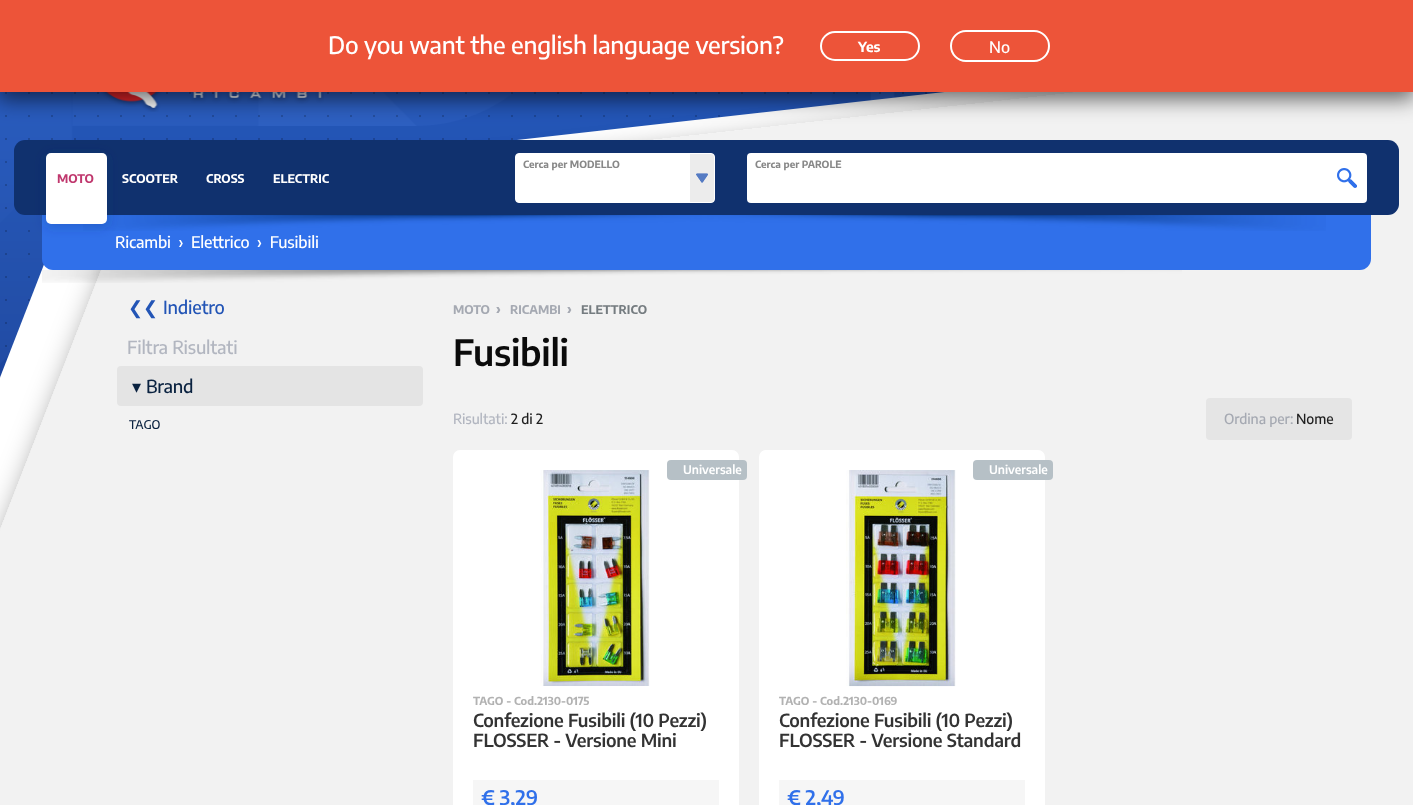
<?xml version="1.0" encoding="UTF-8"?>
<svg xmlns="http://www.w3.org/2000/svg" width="1413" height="805">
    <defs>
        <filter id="blur1" x="-50%" y="-200%" width="200%" height="500%"><feGaussianBlur stdDeviation="10.5"/></filter>
        <filter id="blur2" x="-50%" y="-200%" width="200%" height="500%"><feGaussianBlur stdDeviation="6"/></filter>
    </defs>
    <rect width="100%" height="100%" fill="#FFFFFF"/>
    <image x="0" y="92" width="945" height="286" href="img_01.png"/>
    <image x="0" y="92" width="945" height="286" href="img_04.png"/>
    <image x="5" y="92" width="922" height="255" href="img_02.png"/>
    <path d="M -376 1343 L 73 190 L 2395 -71 V 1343 Z" fill="#FFFFFF"/>
    <image x="0" y="92" width="1413" height="713" href="img_03.png"/>
    <image x="101" y="92" width="223" height="20" href="img_05.png"/>
    <rect x="-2" y="3" width="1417" height="96" fill="#000000" fill-opacity="0.6" filter="url(#blur1)"/>
    <rect x="0" y="0" width="1413" height="92" fill="#ED5439"/>
    <text x="328" y="54" font-family="Encode Sans" font-size="24" font-weight="500" letter-spacing="-0.25" fill="#FFFFFF">Do you want the english language version?</text>
    <rect x="821" y="32" width="98" height="28" rx="14" fill="none" stroke="#FFFFFF" stroke-width="2"/>
    <text x="858" y="52" font-family="Encode Sans" font-size="14" font-weight="700" letter-spacing="-0.1" fill="#FFFFFF">Yes</text>
    <rect x="951" y="31" width="98" height="30" rx="15" fill="none" stroke="#FFFFFF" stroke-width="2"/>
    <text x="989" y="53" font-family="Encode Sans" font-size="16" font-weight="500" fill="#FFFFFF">No</text>
    <rect x="14" y="140" width="1385" height="75" rx="11" fill="#10316E"/>
    <rect x="515.5" y="153.5" width="199" height="49" rx="3.5" fill="#FFFFFF" stroke="#FFFFFF"/>
    <path d="M 690 154 H 711 C 712.5 154 714 155.5 714 157 V 199 C 714 200.5 712.5 202 711 202 H 690 Z" fill="#ECECEC"/>
    <image x="696" y="173" width="12" height="10" href="img_06.png"/>
    <text x="523" y="168" font-family="Encode Sans" font-size="10" font-weight="700" fill="#888888">Cerca per MODELLO</text>
    <rect x="747" y="153" width="620" height="50" rx="4" fill="#FFFFFF"/>
    <image x="1337" y="168" width="20" height="20" href="img_07.png"/>
    <text x="755" y="168" font-family="Encode Sans" font-size="10" font-weight="700" fill="#888888">Cerca per PAROLE</text>
    <path d="M 42 215 H 1371 V 259 C 1371 265 1366 270 1360 270 H 53 C 47 270 42 265 42 259 Z" fill="#3070EA"/>
    <image x="83" y="215" width="1243" height="16" href="img_08.png"/>
    <rect x="44" y="153" width="65" height="75" rx="7" fill="#10316E" fill-opacity="0.2" filter="url(#blur2)"/>
    <rect x="46" y="153" width="61" height="71" rx="5" fill="#FFFFFF"/>
    <text x="57" y="183" font-family="Encode Sans" font-size="12" font-weight="700" fill="#C0386E">MOTO</text>
    <text x="122" y="183" font-family="Encode Sans" font-size="12" font-weight="700" fill="#FFFFFF">SCOOTER</text>
    <text x="206" y="183" font-family="Encode Sans" font-size="12" font-weight="700" fill="#FFFFFF">CROSS</text>
    <text x="273" y="183" font-family="Encode Sans" font-size="12" font-weight="700" fill="#FFFFFF">ELECTRIC</text>
    <text x="115" y="248" font-family="Encode Sans" font-size="16" font-weight="500" letter-spacing="-0.15" fill="#FFFFFF" xml:space="preserve">Ricambi  ›  Elettrico  ›  Fusibili</text>
    <image x="42" y="270" width="1140" height="13" href="img_09.png"/>
    <text x="128" y="314" font-family="DejaVu Sans" font-size="18" letter-spacing="-0.2" fill="#2355B6">❮❮</text>
    <text x="163" y="314" font-family="Encode Sans" font-size="18" font-weight="500" letter-spacing="-0.2" fill="#2355B6">Indietro</text>
    <text x="127" y="354" font-family="Encode Sans" font-size="18" font-weight="500" letter-spacing="-0.2" fill="#B2B6C0">Filtra Risultati</text>
    <rect x="117" y="366" width="306" height="40" rx="4" fill="#E4E4E4"/>
    <text x="132" y="393" font-family="DejaVu Sans" font-size="18" letter-spacing="-0.2" fill="#0A2240">▾</text>
    <text x="146" y="393" font-family="Encode Sans" font-size="18" font-weight="500" letter-spacing="-0.2" fill="#0A2240">Brand</text>
    <text x="129" y="429" font-family="Encode Sans" font-size="12" font-weight="500" fill="#0A2240">TAGO</text>
    <text x="453" y="314" font-family="Encode Sans" font-size="12" font-weight="700" fill="#A5A9B2">MOTO</text>
    <text x="496" y="314" font-family="Encode Sans" font-size="14" font-weight="700" fill="#A5A9B2">›</text>
    <text x="510" y="314" font-family="Encode Sans" font-size="12" font-weight="700" fill="#A5A9B2">RICAMBI</text>
    <text x="567" y="314" font-family="Encode Sans" font-size="14" font-weight="700" fill="#A5A9B2">›</text>
    <text x="581" y="314" font-family="Encode Sans" font-size="12" font-weight="700" fill="#757C80">ELETTRICO</text>
    <text x="453" y="366" font-family="Encode Sans" font-size="36" font-weight="600" letter-spacing="-0.25" fill="#0B0B0B">Fusibili</text>
    <text x="453" y="424" font-family="Encode Sans" font-size="14" font-weight="500" letter-spacing="-0.1" fill="#B2B6C0">Risultati:</text>
    <text x="511" y="424" font-family="Encode Sans" font-size="14" font-weight="500" letter-spacing="-0.1" fill="#1F1F1F">2 di 2</text>
    <rect x="1206" y="398" width="146" height="42" rx="4" fill="#E5E5E5"/>
    <text x="1224" y="424" font-family="Encode Sans" font-size="14" font-weight="500" letter-spacing="-0.1" fill="#A5A9B2">Ordina per:</text>
    <text x="1296" y="424" font-family="Encode Sans" font-size="14" font-weight="500" letter-spacing="-0.1" fill="#1F1F1F">Nome</text>
    <rect x="453" y="450" width="286" height="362" rx="7" fill="#FFFFFF"/>
    <image x="540" y="470" width="110" height="216" href="img_10.png"/>
    <rect x="667" y="460" width="80" height="20" rx="4" fill="#B6C0C6"/>
    <text x="683" y="474" font-family="Encode Sans" font-size="12" font-weight="600" fill="#FFFFFF">Universale</text>
    <text x="473" y="705" font-family="Encode Sans" font-size="11" font-weight="700" fill="#B2B2B2">TAGO - Cod.2130-0175</text>
    <text font-family="Encode Sans" font-size="18" font-weight="600" letter-spacing="-0.2" fill="#333333">
        <tspan x="473" y="727">Confezione Fusibili (10 Pezzi)</tspan>
        <tspan x="473" y="747">FLOSSER - Versione Mini</tspan>
    </text>
    <rect x="473" y="780" width="246" height="25" fill="#F6F6F6"/>
    <text x="481" y="805" font-family="Encode Sans" font-size="20" font-weight="600" fill="#3070EA">€ 3,29</text>
    <rect x="759" y="450" width="286" height="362" rx="7" fill="#FFFFFF"/>
    <image x="846" y="470" width="110" height="217" href="img_11.png"/>
    <rect x="973" y="460" width="80" height="20" rx="4" fill="#B6C0C6"/>
    <text x="989" y="474" font-family="Encode Sans" font-size="12" font-weight="600" fill="#FFFFFF">Universale</text>
    <text x="779" y="705" font-family="Encode Sans" font-size="11" font-weight="700" fill="#B2B2B2">TAGO - Cod.2130-0169</text>
    <text font-family="Encode Sans" font-size="18" font-weight="600" letter-spacing="-0.2" fill="#333333">
        <tspan x="779" y="727">Confezione Fusibili (10 Pezzi)</tspan>
        <tspan x="779" y="747">FLOSSER - Versione Standard</tspan>
    </text>
    <rect x="779" y="780" width="246" height="25" fill="#F6F6F6"/>
    <text x="787" y="805" font-family="Encode Sans" font-size="20" font-weight="600" fill="#3070EA">€ 2,49</text>
</svg>
